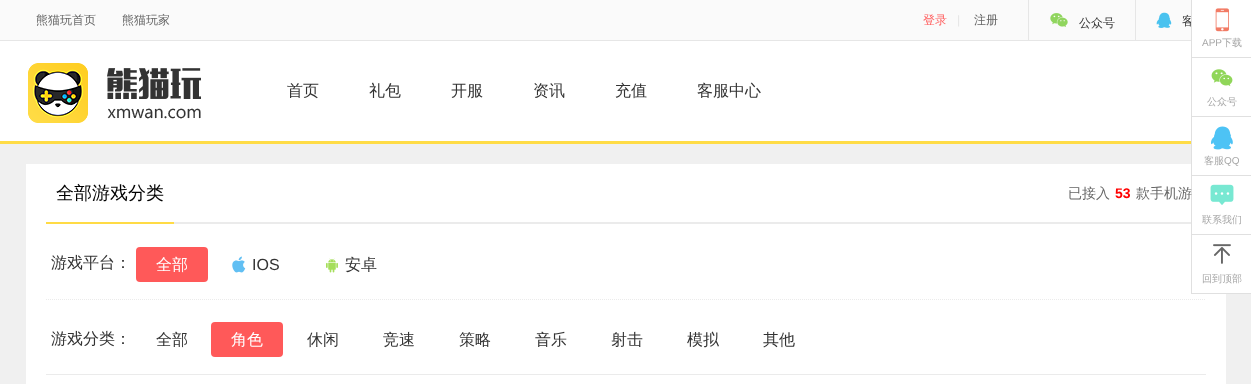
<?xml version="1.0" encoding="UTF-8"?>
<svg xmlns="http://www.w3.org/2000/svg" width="1251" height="384">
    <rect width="100%" height="100%" fill="#F0F0F0"/>
    <rect x="0" y="0" width="1191" height="40" fill="#FAFAFA"/>
    <rect x="0" y="40" width="1191" height="1" fill="#E6E6E6"/>
    <text x="36" y="24" font-family="WenQuanYi Zen Hei" font-size="12" font-weight="500" fill="#666666">熊猫玩首页</text>
    <text x="122" y="24" font-family="WenQuanYi Zen Hei" font-size="12" font-weight="500" fill="#666666">熊猫玩家</text>
    <text x="923" y="24" font-family="WenQuanYi Zen Hei" font-size="12" font-weight="500" fill="#FF6262">登录</text>
    <text x="957" y="24" font-family="Liberation Sans" font-size="12" fill="#E6E6E6">|</text>
    <text x="974" y="24" font-family="WenQuanYi Zen Hei" font-size="12" font-weight="500" fill="#666666">注册</text>
    <rect x="1028" y="0" width="1" height="40" fill="#E6E6E6"/>
    <image x="1050" y="13" width="18" height="14" href="img_01.png"/>
    <text x="1079" y="27" font-family="WenQuanYi Zen Hei" font-size="12" font-weight="500" fill="#333333">公众号</text>
    <rect x="1135" y="0" width="1" height="40" fill="#E6E6E6"/>
    <image x="1156" y="12" width="16" height="16" href="img_02.png"/>
    <text x="1182" y="25" font-family="WenQuanYi Zen Hei" font-size="12" font-weight="500" fill="#333333">客</text>
    <rect x="0" y="41" width="1251" height="100" fill="#FFFFFF"/>
    <rect x="0" y="141" width="1191" height="3" fill="#FFDC46"/>
    <image x="28" y="63" width="173" height="60" href="img_03.png"/>
    <text x="287" y="96" font-family="WenQuanYi Zen Hei" font-size="16" font-weight="500" fill="#333333">首页</text>
    <text x="369" y="96" font-family="WenQuanYi Zen Hei" font-size="16" font-weight="500" fill="#333333">礼包</text>
    <text x="451" y="96" font-family="WenQuanYi Zen Hei" font-size="16" font-weight="500" fill="#333333">开服</text>
    <text x="533" y="96" font-family="WenQuanYi Zen Hei" font-size="16" font-weight="500" fill="#333333">资讯</text>
    <text x="615" y="96" font-family="WenQuanYi Zen Hei" font-size="16" font-weight="500" fill="#333333">充值</text>
    <text x="697" y="96" font-family="WenQuanYi Zen Hei" font-size="16" font-weight="500" fill="#333333">客服中心</text>
    <rect x="26" y="164" width="1200" height="220" fill="#FFFFFF"/>
    <rect x="1191" y="0" width="1" height="294" fill="#E0E0E0"/>
    <rect x="1192" y="0" width="59" height="41" fill="#FFFFFF"/>
    <rect x="1192" y="57" width="59" height="1" fill="#E0E0E0"/>
    <image x="1215" y="8" width="14" height="24" href="img_04.png"/>
    <text x="1202" y="46" font-family="Liberation Sans" font-size="10" fill="#A7A7A7">APP</text>
    <text x="1222" y="46" font-family="WenQuanYi Zen Hei" font-size="10" font-weight="500" fill="#A7A7A7">下载</text>
    <rect x="1192" y="116" width="59" height="1" fill="#E0E0E0"/>
    <image x="1211" y="69" width="22" height="18" href="img_05.png"/>
    <text x="1207" y="105" font-family="WenQuanYi Zen Hei" font-size="10" font-weight="500" fill="#A7A7A7">公众号</text>
    <rect x="1192" y="141" width="59" height="34" fill="#FFFFFF"/>
    <rect x="1192" y="175" width="59" height="1" fill="#E0E0E0"/>
    <image x="1211" y="126" width="22" height="24" href="img_06.png"/>
    <text x="1204" y="164" font-family="WenQuanYi Zen Hei" font-size="10" font-weight="500" fill="#A7A7A7">客服</text>
    <text x="1224" y="164" font-family="Liberation Sans" font-size="10" fill="#A7A7A7">QQ</text>
    <rect x="1226" y="176" width="25" height="58" fill="#FFFFFF"/>
    <rect x="1192" y="234" width="59" height="1" fill="#E0E0E0"/>
    <image x="1210" y="184" width="24" height="21" href="img_07.png"/>
    <text x="1202" y="223" font-family="WenQuanYi Zen Hei" font-size="10" font-weight="500" fill="#A7A7A7">联系我们</text>
    <rect x="1226" y="235" width="25" height="58" fill="#FFFFFF"/>
    <rect x="1192" y="293" width="59" height="1" fill="#E0E0E0"/>
    <image x="1213" y="244" width="18" height="20" href="img_08.png"/>
    <text x="1202" y="282" font-family="WenQuanYi Zen Hei" font-size="10" font-weight="500" fill="#A7A7A7">回到顶部</text>
    <rect x="174" y="222" width="1017" height="2" fill="#EBEBEB"/>
    <rect x="46" y="222" width="128" height="2" fill="#FFDB45"/>
    <text x="56" y="199" font-family="WenQuanYi Zen Hei" font-size="18" font-weight="500" fill="#000000">全部游戏分类</text>
    <text x="1068" y="198" font-family="WenQuanYi Zen Hei" font-size="14" font-weight="500" fill="#666666">已接入</text>
    <text x="1115" y="198" font-family="Liberation Sans" font-size="14" font-weight="700" fill="#FF0000">53</text>
    <text x="1136" y="198" font-family="WenQuanYi Zen Hei" font-size="14" font-weight="500" fill="#666666">款手机游</text>
    <path d="M 46 299.5 H 1206" fill="none" stroke="#EBEBEB" stroke-dasharray="1 1"/>
    <text x="51" y="268" font-family="WenQuanYi Zen Hei" font-size="16" font-weight="500" fill="#333333">游戏平台：</text>
    <rect x="136" y="247" width="72" height="35" rx="4" fill="#FF5959"/>
    <text x="156" y="270" font-family="WenQuanYi Zen Hei" font-size="16" font-weight="500" fill="#FFFFFF">全部</text>
    <image x="232" y="256" width="14" height="17" href="img_09.png"/>
    <text x="252" y="270" font-family="Liberation Sans" font-size="16" fill="#333333">IOS</text>
    <image x="326" y="258" width="12" height="15" href="img_10.png"/>
    <text x="345" y="270" font-family="WenQuanYi Zen Hei" font-size="16" font-weight="500" fill="#333333">安卓</text>
    <rect x="46" y="374" width="1160" height="1" fill="#EBEBEB"/>
    <text x="51" y="344" font-family="WenQuanYi Zen Hei" font-size="16" font-weight="500" fill="#333333">游戏分类：</text>
    <text x="156" y="345" font-family="WenQuanYi Zen Hei" font-size="16" font-weight="500" fill="#333333">全部</text>
    <rect x="211" y="322" width="72" height="35" rx="4" fill="#FF5959"/>
    <text x="231" y="345" font-family="WenQuanYi Zen Hei" font-size="16" font-weight="500" fill="#FFFFFF">角色</text>
    <text x="307" y="345" font-family="WenQuanYi Zen Hei" font-size="16" font-weight="500" fill="#333333">休闲</text>
    <text x="383" y="345" font-family="WenQuanYi Zen Hei" font-size="16" font-weight="500" fill="#333333">竞速</text>
    <text x="459" y="345" font-family="WenQuanYi Zen Hei" font-size="16" font-weight="500" fill="#333333">策略</text>
    <text x="535" y="345" font-family="WenQuanYi Zen Hei" font-size="16" font-weight="500" fill="#333333">音乐</text>
    <text x="611" y="345" font-family="WenQuanYi Zen Hei" font-size="16" font-weight="500" fill="#333333">射击</text>
    <text x="687" y="345" font-family="WenQuanYi Zen Hei" font-size="16" font-weight="500" fill="#333333">模拟</text>
    <text x="763" y="345" font-family="WenQuanYi Zen Hei" font-size="16" font-weight="500" fill="#333333">其他</text>
</svg>
